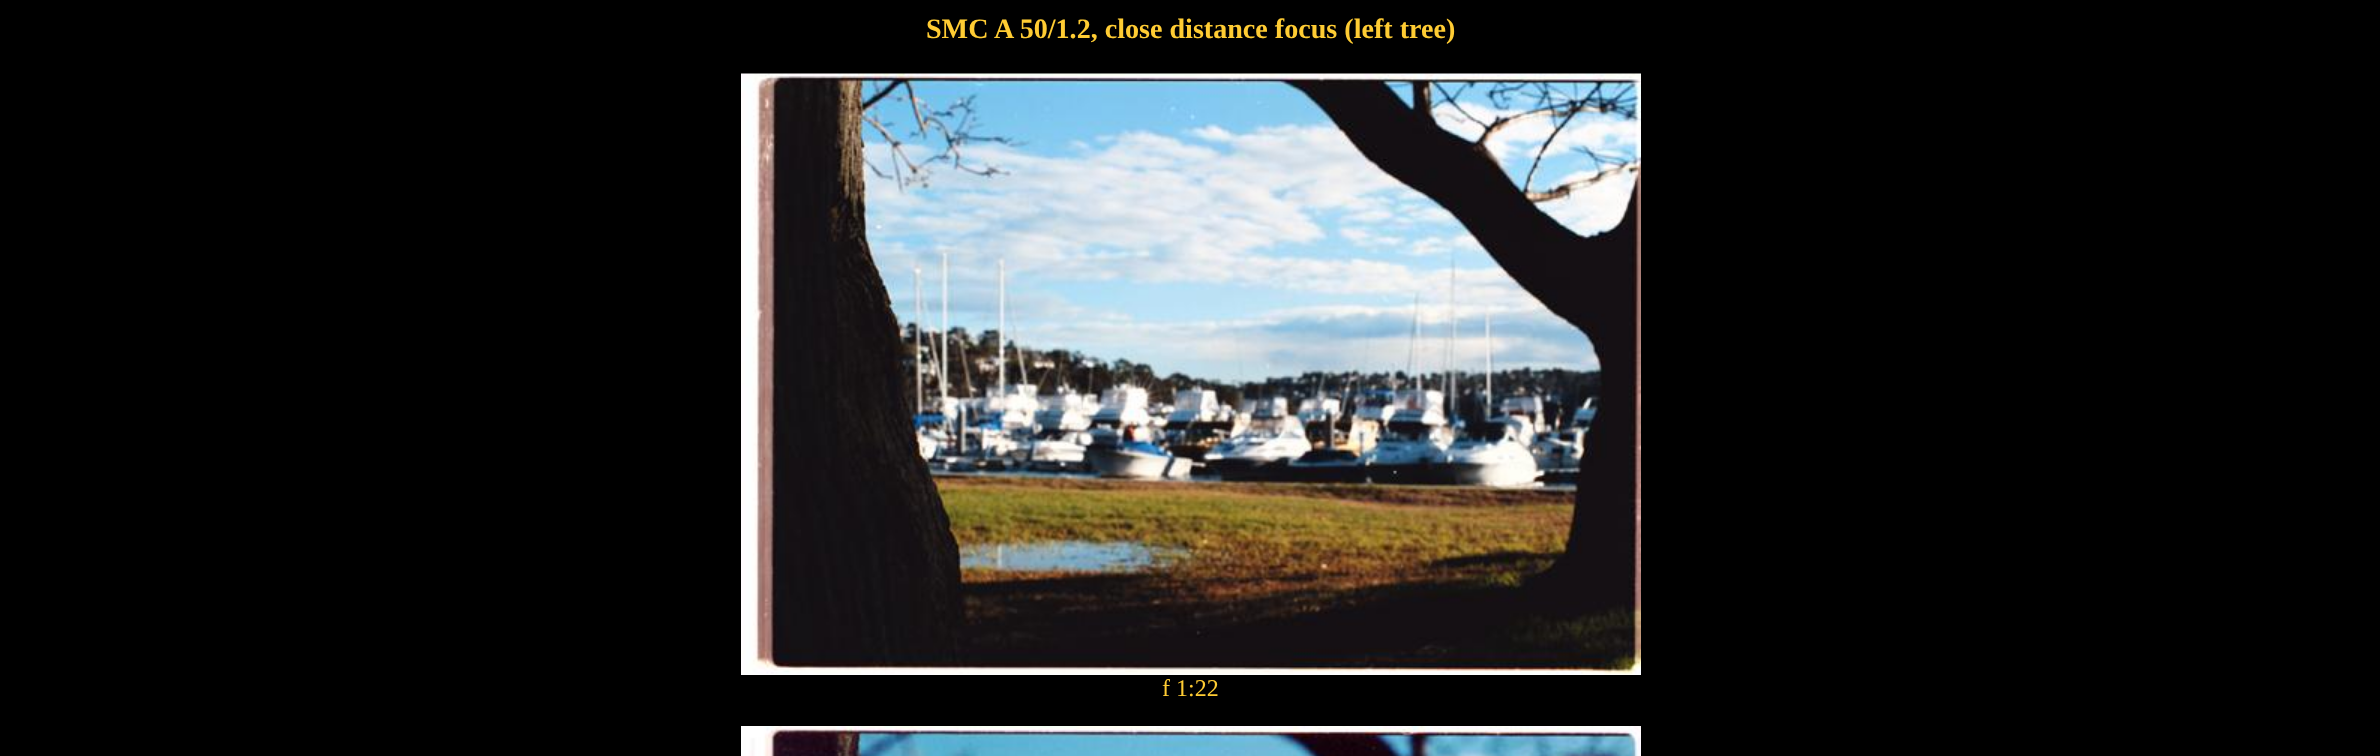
<?xml version="1.0" encoding="UTF-8"?>
<svg xmlns="http://www.w3.org/2000/svg" width="2380" height="756">
    <rect width="100%" height="100%" fill="#000000"/>
    <text x="926" y="38" font-family="Liberation Serif" font-size="28.1" font-weight="700" fill="#FFCC33">SMC A 50/1.2, close distance focus (left tree)</text>
    <image x="741" y="73" width="900" height="602" href="img_01.png"/>
    <text x="1162" y="696" font-family="Liberation Serif" font-size="24" fill="#FFCC33">f 1:22</text>
    <image x="741" y="726" width="900" height="30" href="img_02.png"/>
</svg>
